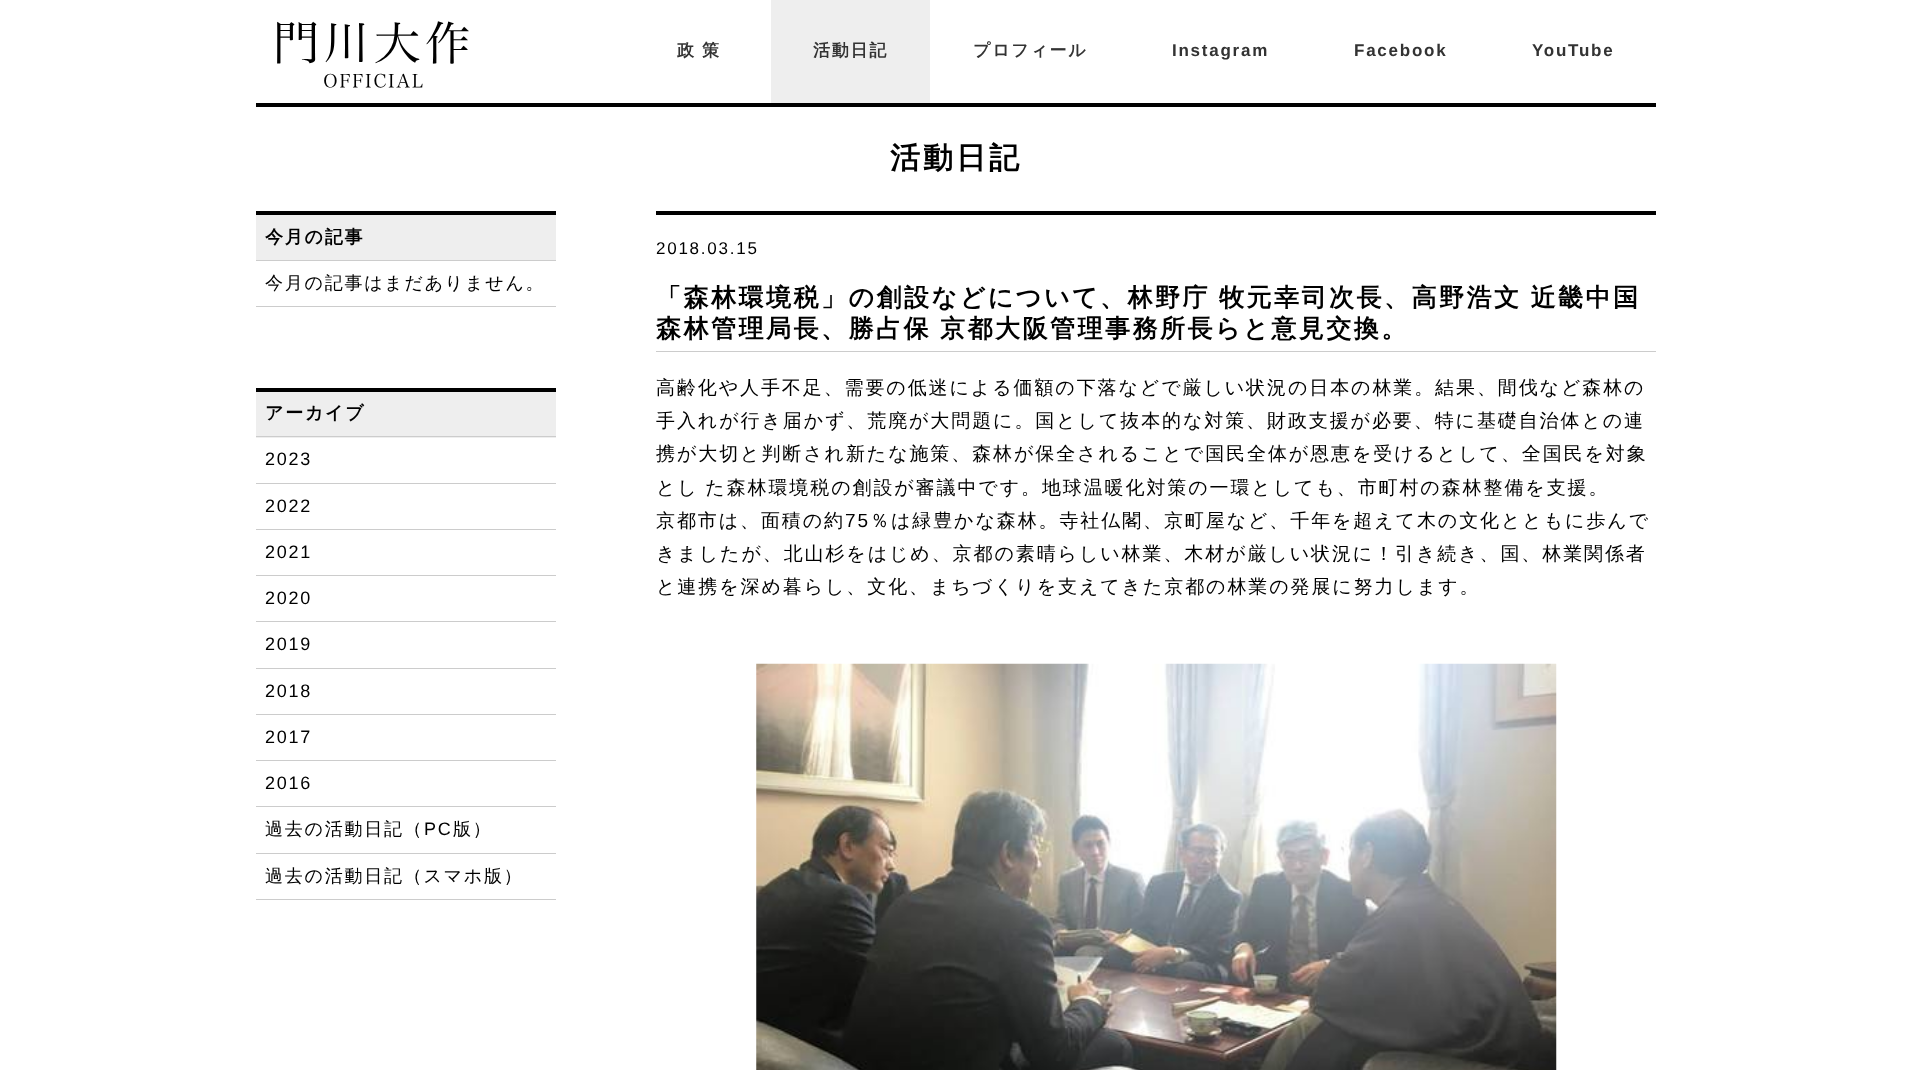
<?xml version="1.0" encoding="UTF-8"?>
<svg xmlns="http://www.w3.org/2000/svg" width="1912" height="1070">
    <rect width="100%" height="100%" fill="#FFFFFF"/>
    <text x="273" y="60" font-family="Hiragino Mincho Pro" font-size="46" font-weight="300" letter-spacing="4.5" fill="#000000">門川大作</text>
    <text x="323" y="88" font-family="Hiragino Mincho Pro" font-size="18.5" font-weight="300" letter-spacing="1.75" fill="#000000">OFFICIAL</text>
    <text x="677" y="56" font-family="WenQuanYi Zen Hei" font-size="17" font-weight="700" letter-spacing="8" fill="#333333">政策</text>
    <rect x="771" y="0" width="159" height="103" fill="#EEEEEE"/>
    <text x="813" y="56" font-family="WenQuanYi Zen Hei" font-size="17" font-weight="700" letter-spacing="1.75" fill="#333333">活動日記</text>
    <text x="973" y="56" font-family="WenQuanYi Zen Hei" font-size="17" font-weight="700" letter-spacing="1.75" fill="#333333">プロフィール</text>
    <text x="1172" y="56" font-family="Liberation Sans" font-size="17" font-weight="700" letter-spacing="1.75" fill="#333333">Instagram</text>
    <text x="1354" y="56" font-family="Liberation Sans" font-size="17" font-weight="700" letter-spacing="1.75" fill="#333333">Facebook</text>
    <text x="1532" y="56" font-family="Liberation Sans" font-size="17" font-weight="700" letter-spacing="1.75" fill="#333333">YouTube</text>
    <rect x="256" y="103" width="1400" height="4" fill="#000000"/>
    <text x="890" y="168" font-family="WenQuanYi Zen Hei" font-size="30" font-weight="700" letter-spacing="3" fill="#000000">活動日記</text>
    <rect x="256" y="215" width="300" height="45" fill="#EEEEEE"/>
    <rect x="256" y="211" width="300" height="4" fill="#000000"/>
    <rect x="256" y="260" width="300" height="1" fill="#CCCCCC"/>
    <text x="265" y="243" font-family="WenQuanYi Zen Hei" font-size="18" font-weight="700" letter-spacing="1.75" fill="#000000">今月の記事</text>
    <rect x="256" y="306" width="300" height="1" fill="#CCCCCC"/>
    <text x="265" y="289" font-family="WenQuanYi Zen Hei" font-size="18" font-weight="500" letter-spacing="1.75" fill="#000000">今月の記事はまだありません。</text>
    <rect x="256" y="392" width="300" height="46" fill="#EEEEEE"/>
    <rect x="256" y="388" width="300" height="4" fill="#000000"/>
    <rect x="256" y="436" width="300" height="1" fill="#CCCCCC"/>
    <text x="265" y="419" font-family="WenQuanYi Zen Hei" font-size="18" font-weight="700" letter-spacing="1.75" fill="#000000">アーカイブ</text>
    <rect x="256" y="483" width="300" height="1" fill="#CCCCCC"/>
    <text x="265" y="465" font-family="Liberation Sans" font-size="18" letter-spacing="1.75" fill="#000000">2023</text>
    <rect x="256" y="529" width="300" height="1" fill="#CCCCCC"/>
    <text x="265" y="512" font-family="Liberation Sans" font-size="18" letter-spacing="1.75" fill="#000000">2022</text>
    <rect x="256" y="575" width="300" height="1" fill="#CCCCCC"/>
    <text x="265" y="558" font-family="Liberation Sans" font-size="18" letter-spacing="1.75" fill="#000000">2021</text>
    <rect x="256" y="621" width="300" height="1" fill="#CCCCCC"/>
    <text x="265" y="604" font-family="Liberation Sans" font-size="18" letter-spacing="1.75" fill="#000000">2020</text>
    <rect x="256" y="668" width="300" height="1" fill="#CCCCCC"/>
    <text x="265" y="650" font-family="Liberation Sans" font-size="18" letter-spacing="1.75" fill="#000000">2019</text>
    <rect x="256" y="714" width="300" height="1" fill="#CCCCCC"/>
    <text x="265" y="697" font-family="Liberation Sans" font-size="18" letter-spacing="1.75" fill="#000000">2018</text>
    <rect x="256" y="760" width="300" height="1" fill="#CCCCCC"/>
    <text x="265" y="743" font-family="Liberation Sans" font-size="18" letter-spacing="1.75" fill="#000000">2017</text>
    <rect x="256" y="806" width="300" height="1" fill="#CCCCCC"/>
    <text x="265" y="789" font-family="Liberation Sans" font-size="18" letter-spacing="1.75" fill="#000000">2016</text>
    <rect x="256" y="853" width="300" height="1" fill="#CCCCCC"/>
    <text x="265" y="835" font-family="WenQuanYi Zen Hei" font-size="18" font-weight="500" letter-spacing="1.75" fill="#000000">過去の活動日記（</text>
    <text x="424" y="835" font-family="Liberation Sans" font-size="18" letter-spacing="1.75" fill="#000000">PC</text>
    <text x="453" y="835" font-family="WenQuanYi Zen Hei" font-size="18" font-weight="500" letter-spacing="1.75" fill="#000000">版）</text>
    <rect x="256" y="899" width="300" height="1" fill="#CCCCCC"/>
    <text x="265" y="882" font-family="WenQuanYi Zen Hei" font-size="18" font-weight="500" letter-spacing="1.75" fill="#000000">過去の活動日記（スマホ版）</text>
    <rect x="656" y="211" width="1000" height="4" fill="#000000"/>
    <text x="656" y="254" font-family="Liberation Sans" font-size="17" letter-spacing="1.75" fill="#000000">2018.03.15</text>
    <rect x="656" y="351" width="1000" height="1" fill="#CCCCCC"/>
    <text font-family="WenQuanYi Zen Hei" font-size="25" font-weight="700" letter-spacing="2.5" fill="#000000">
        <tspan x="656" y="306" word-spacing="-1">「森林環境税」の創設などについて、林野庁 牧元幸司次長、高野浩文 近畿中国</tspan>
        <tspan x="656" y="337" word-spacing="-1">森林管理局長、勝占保 京都大阪管理事務所長らと意見交換。</tspan>
    </text>
    <text font-family="WenQuanYi Zen Hei" font-size="19" font-weight="500" letter-spacing="1.9" fill="#000000">
        <tspan x="656" y="394">高齢化や人手不足、需要の低迷による価額の下落などで厳しい状況の日本の林業。結果、間伐など森林の</tspan>
        <tspan x="656" y="427">手入れが行き届かず、荒廃が大問題に。国として抜本的な対策、財政支援が必要、特に基礎自治体との連</tspan>
        <tspan x="656" y="460">携が大切と判断され新たな施策、森林が保全されることで国民全体が恩恵を受けるとして、全国民を対象</tspan>
        <tspan x="656" y="494" word-spacing="-1">とし た森林環境税の創設が審議中です。地球温暖化対策の一環としても、市町村の森林整備を支援。</tspan>
        <tspan x="656" y="527">京都市は、面積の約</tspan>
    </text>
    <text x="845" y="527" font-family="Liberation Sans" font-size="19" letter-spacing="1.9" fill="#000000">75</text>
    <text x="870" y="527" font-family="WenQuanYi Zen Hei" font-size="19" font-weight="500" letter-spacing="1.9" fill="#000000">％は緑豊かな森林。寺社仏閣、京町屋など、千年を超えて木の文化とともに歩んで</text>
    <text font-family="WenQuanYi Zen Hei" font-size="19" font-weight="500" letter-spacing="1.9" fill="#000000">
        <tspan x="656" y="560">きましたが、北山杉をはじめ、京都の素晴らしい林業、木材が厳しい状況に！引き続き、国、林業関係者</tspan>
        <tspan x="656" y="593">と連携を深め暮らし、文化、まちづくりを支えてきた京都の林業の発展に努力します。</tspan>
    </text>
    <image x="756" y="663" width="801" height="407" href="img_01.png"/>
</svg>
